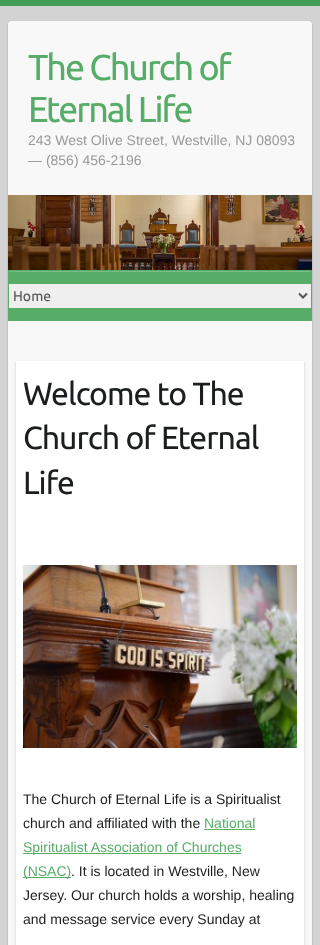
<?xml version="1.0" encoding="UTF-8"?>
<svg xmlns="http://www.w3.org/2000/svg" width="320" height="945">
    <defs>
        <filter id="blur1" x="-50%" y="-200%" width="200%" height="500%"><feGaussianBlur stdDeviation="1"/></filter>
    </defs>
    <rect width="100%" height="100%" fill="#D3D3D3"/>
    <rect x="0" y="0" width="320" height="6" fill="#439F55"/>
    <rect x="8" y="22" width="304" height="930" rx="4" fill="#000000" fill-opacity="0.2" filter="url(#blur1)"/>
    <rect x="8" y="21" width="304" height="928" rx="4" fill="#F8F8F8"/>
    <text font-family="Ubuntu" font-size="36" letter-spacing="-2" fill="#57AD68">
        <tspan x="28" y="80">The Church of</tspan>
        <tspan x="28" y="122">Eternal Life</tspan>
    </text>
    <text font-family="Liberation Sans" font-size="14" fill="#999999">
        <tspan x="28" y="145">243 West Olive Street, Westville, NJ 08093</tspan>
        <tspan x="28" y="165">— (856) 456-2196</tspan>
    </text>
    <image x="8" y="195" width="304" height="75" href="img_01.png"/>
    <rect x="8" y="270" width="304" height="51" fill="#57AD68"/>
    <rect x="9" y="271" width="302" height="1" fill="#79BD86"/>
    <rect x="9" y="284" width="302" height="24" fill="#EFEFEF"/>
    <path d="M 299 293.5 L 303 297.5 L 307 293.5" fill="none" stroke="#555555" stroke-width="2"/>
    <text x="13" y="301" font-family="Ubuntu" font-size="14" fill="#555555">Home</text>
    <rect x="16" y="362" width="288" height="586" fill="#000000" fill-opacity="0.2" filter="url(#blur1)"/>
    <rect x="16" y="361" width="288" height="584" fill="#FFFFFF"/>
    <text font-family="Ubuntu" font-size="32" letter-spacing="-1" fill="#1B1E1F">
        <tspan x="23" y="405">Welcome to The</tspan>
        <tspan x="23" y="449">Church of Eternal</tspan>
        <tspan x="23" y="494">Life</tspan>
    </text>
    <image x="23" y="565" width="274" height="183" href="img_02.png"/>
    <text font-family="Liberation Sans" font-size="14" fill="#1B1E1F">
        <tspan x="23" y="804">The Church of Eternal Life is a Spiritualist</tspan>
        <tspan x="23" y="828">church and affiliated with the</tspan>
    </text>
    <text x="204" y="828" font-family="Liberation Sans" font-size="14" fill="#57AD68">National</text>
    <rect x="204" y="829" width="51" height="1" fill="#57AD68"/>
    <rect x="23" y="853" width="218" height="1" fill="#57AD68"/>
    <text x="23" y="852" font-family="Liberation Sans" font-size="14" fill="#57AD68">Spiritualist Association of Churches</text>
    <rect x="23" y="877" width="48" height="1" fill="#57AD68"/>
    <text x="23" y="876" font-family="Liberation Sans" font-size="14" fill="#57AD68">(NSAC)</text>
    <text x="71" y="876" font-family="Liberation Sans" font-size="14" fill="#1B1E1F">. It is located in Westville, New</text>
    <text font-family="Liberation Sans" font-size="14" fill="#1B1E1F">
        <tspan x="23" y="900">Jersey. Our church holds a worship, healing</tspan>
        <tspan x="23" y="924">and message service every Sunday at</tspan>
    </text>
</svg>
